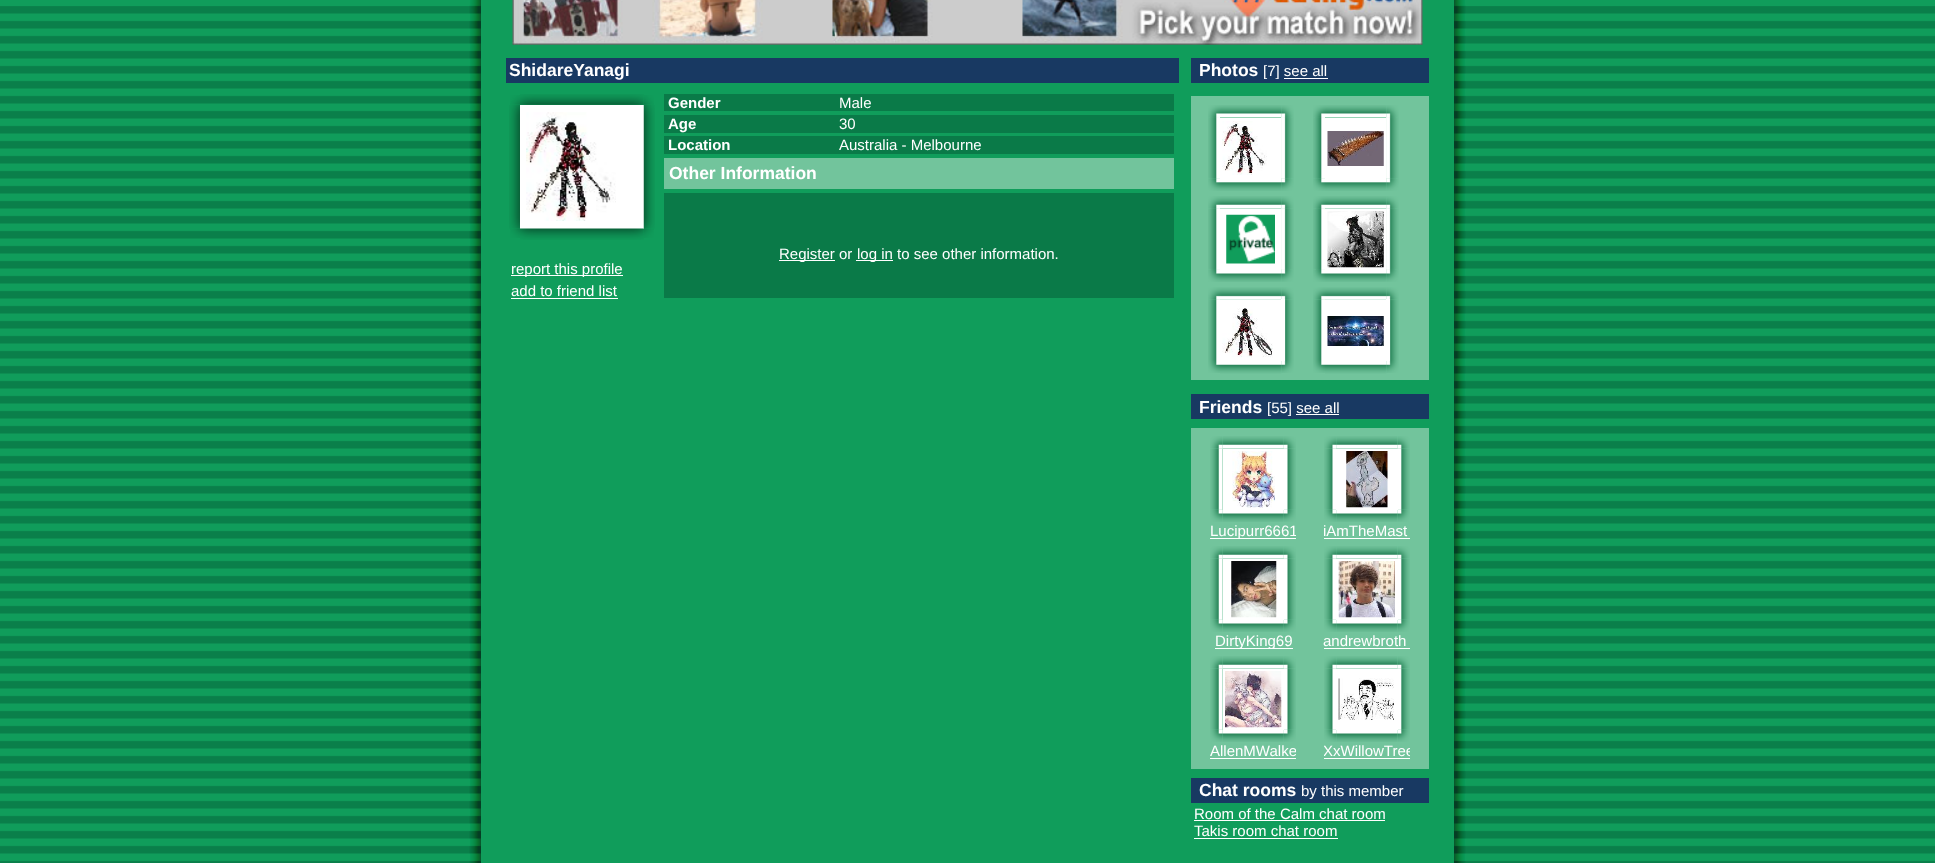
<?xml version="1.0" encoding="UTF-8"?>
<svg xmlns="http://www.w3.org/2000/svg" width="1935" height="863">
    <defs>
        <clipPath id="clip1"><rect x="1210" y="523" width="86" height="17"/></clipPath>
        <clipPath id="clip2"><rect x="1210" y="743" width="86" height="17"/></clipPath>
        <clipPath id="clip3"><rect x="1324" y="743" width="86" height="17"/></clipPath>
    </defs>
    <rect width="100%" height="100%" fill="#109D5B"/>
    <image x="0" y="6" width="1935" height="857" href="img_01.png"/>
    <image x="469" y="0" width="12" height="863" href="img_02.png"/>
    <image x="1454" y="0" width="12" height="863" href="img_03.png"/>
    <rect x="481" y="6" width="973" height="857" fill="#109D5B"/>
    <image x="512" y="0" width="911" height="45" href="img_04.png"/>
    <rect x="506" y="58" width="673" height="25" fill="#183962"/>
    <text x="509" y="76" font-family="Liberation Sans" font-size="17.5" font-weight="700" fill="#FFFFFF">ShidareYanagi</text>
    <rect x="664" y="94" width="510" height="17" fill="#0A7A48"/>
    <text x="668" y="108" font-family="Liberation Sans" font-size="15" font-weight="700" fill="#FFFFFF">Gender</text>
    <text x="839" y="108" font-family="Liberation Sans" font-size="15" fill="#FFFFFF">Male</text>
    <rect x="664" y="115" width="510" height="18" fill="#0A7A48"/>
    <text x="668" y="129" font-family="Liberation Sans" font-size="15" font-weight="700" fill="#FFFFFF">Age</text>
    <text x="839" y="129" font-family="Liberation Sans" font-size="15" fill="#FFFFFF">30</text>
    <rect x="664" y="136" width="510" height="18" fill="#0A7A48"/>
    <text x="668" y="150" font-family="Liberation Sans" font-size="15" font-weight="700" fill="#FFFFFF">Location</text>
    <text x="839" y="150" font-family="Liberation Sans" font-size="15" fill="#FFFFFF">Australia - Melbourne</text>
    <rect x="664" y="158" width="510" height="31" fill="#72C49C"/>
    <text x="669" y="179" font-family="Liberation Sans" font-size="17.5" font-weight="700" fill="#FFFFFF">Other Information</text>
    <rect x="664" y="193" width="510" height="105" fill="#0A7A48"/>
    <rect x="779" y="260" width="56" height="1" fill="#FFFFFF"/>
    <text x="779" y="259" font-family="Liberation Sans" font-size="15" fill="#FFFFFF">Register or</text>
    <rect x="856" y="260" width="37" height="1" fill="#FFFFFF"/>
    <text x="857" y="259" font-family="Liberation Sans" font-size="15" fill="#FFFFFF">log in to see other information.</text>
    <image x="510" y="95" width="10" height="10" href="img_05.png"/>
    <image x="520" y="94" width="124" height="11" href="img_06.png"/>
    <image x="644" y="95" width="10" height="10" href="img_07.png"/>
    <image x="509" y="105" width="11" height="124" href="img_08.png"/>
    <rect x="520" y="105" width="124" height="124" fill="#FFFFFF"/>
    <image x="526" y="112" width="90" height="109" href="img_09.png"/>
    <image x="643" y="105" width="12" height="124" href="img_10.png"/>
    <image x="510" y="228" width="10" height="10" href="img_11.png"/>
    <image x="520" y="228" width="124" height="12" href="img_12.png"/>
    <image x="643" y="228" width="11" height="10" href="img_13.png"/>
    <rect x="511" y="275" width="112" height="1" fill="#FFFFFF"/>
    <text font-family="Liberation Sans" font-size="15" fill="#FFFFFF">
        <tspan x="511" y="274">report this profile</tspan>
        <tspan x="511" y="296">add to friend list</tspan>
    </text>
    <rect x="511" y="298" width="107" height="1" fill="#FFFFFF"/>
    <rect x="1191" y="58" width="238" height="25" fill="#183962"/>
    <text x="1199" y="76" font-family="Liberation Sans" font-size="17.5" font-weight="700" fill="#FFFFFF">Photos</text>
    <text x="1263" y="76" font-family="Liberation Sans" font-size="15" fill="#FFFFFF">[7] see all</text>
    <rect x="1284" y="78" width="44" height="1" fill="#FFFFFF"/>
    <rect x="1191" y="96" width="238" height="284" fill="#72C49C"/>
    <image x="1208" y="117" width="12" height="62" href="img_17.png"/>
    <image x="1208" y="105" width="12" height="13" href="img_14.png"/>
    <image x="1281" y="117" width="13" height="62" href="img_20.png"/>
    <image x="1220" y="105" width="62" height="13" href="img_15.png"/>
    <image x="1281" y="105" width="13" height="13" href="img_16.png"/>
    <image x="1210" y="117" width="10" height="62" href="img_18.png"/>
    <rect x="1220" y="118" width="61" height="61" fill="#FFFFFF"/>
    <image x="1222" y="121" width="45" height="54" href="img_19.png"/>
    <image x="1281" y="117" width="10" height="62" href="img_21.png"/>
    <image x="1208" y="178" width="12" height="13" href="img_22.png"/>
    <image x="1220" y="178" width="62" height="13" href="img_23.png"/>
    <image x="1281" y="178" width="13" height="13" href="img_24.png"/>
    <image x="1313" y="117" width="12" height="62" href="img_26.png"/>
    <image x="1313" y="105" width="12" height="13" href="img_25.png"/>
    <image x="1386" y="117" width="13" height="62" href="img_20.png"/>
    <image x="1325" y="105" width="62" height="13" href="img_15.png"/>
    <image x="1386" y="105" width="13" height="13" href="img_16.png"/>
    <image x="1315" y="117" width="10" height="62" href="img_27.png"/>
    <rect x="1325" y="118" width="61" height="61" fill="#FFFFFF"/>
    <image x="1327" y="131" width="57" height="35" href="img_28.png"/>
    <image x="1386" y="117" width="10" height="62" href="img_21.png"/>
    <image x="1313" y="178" width="12" height="13" href="img_29.png"/>
    <image x="1325" y="178" width="62" height="13" href="img_23.png"/>
    <image x="1386" y="178" width="13" height="13" href="img_24.png"/>
    <image x="1208" y="208" width="12" height="62" href="img_33.png"/>
    <image x="1208" y="196" width="12" height="13" href="img_30.png"/>
    <image x="1281" y="208" width="13" height="62" href="img_36.png"/>
    <image x="1220" y="196" width="62" height="13" href="img_31.png"/>
    <image x="1281" y="196" width="13" height="13" href="img_32.png"/>
    <image x="1211" y="208" width="9" height="62" href="img_34.png"/>
    <rect x="1220" y="209" width="61" height="61" fill="#FFFFFF"/>
    <image x="1226" y="214" width="49" height="50" href="img_35.png"/>
    <image x="1281" y="208" width="9" height="62" href="img_37.png"/>
    <image x="1208" y="270" width="12" height="12" href="img_38.png"/>
    <image x="1220" y="270" width="62" height="12" href="img_39.png"/>
    <image x="1281" y="269" width="13" height="13" href="img_40.png"/>
    <image x="1313" y="208" width="12" height="62" href="img_42.png"/>
    <image x="1313" y="196" width="12" height="13" href="img_41.png"/>
    <image x="1386" y="208" width="13" height="62" href="img_36.png"/>
    <image x="1325" y="196" width="62" height="13" href="img_31.png"/>
    <image x="1386" y="196" width="13" height="13" href="img_32.png"/>
    <image x="1316" y="208" width="9" height="62" href="img_43.png"/>
    <rect x="1325" y="209" width="61" height="61" fill="#FFFFFF"/>
    <image x="1327" y="211" width="57" height="57" href="img_44.png"/>
    <image x="1386" y="208" width="9" height="62" href="img_37.png"/>
    <image x="1313" y="270" width="12" height="12" href="img_45.png"/>
    <image x="1325" y="270" width="62" height="12" href="img_39.png"/>
    <image x="1386" y="269" width="13" height="13" href="img_40.png"/>
    <image x="1208" y="299" width="12" height="62" href="img_49.png"/>
    <image x="1208" y="287" width="12" height="13" href="img_46.png"/>
    <image x="1220" y="287" width="62" height="13" href="img_47.png"/>
    <image x="1285" y="299" width="9" height="62" href="img_51.png"/>
    <image x="1281" y="287" width="13" height="13" href="img_48.png"/>
    <rect x="1217" y="299" width="3" height="1" fill="#EBF7F1"/>
    <rect x="1220" y="300" width="61" height="61" fill="#FFFFFF"/>
    <image x="1222" y="308" width="51" height="50" href="img_50.png"/>
    <rect x="1281" y="299" width="4" height="62" fill="#FFFFFF"/>
    <image x="1208" y="361" width="12" height="12" href="img_52.png"/>
    <image x="1220" y="361" width="62" height="13" href="img_53.png"/>
    <image x="1281" y="361" width="13" height="12" href="img_54.png"/>
    <image x="1313" y="299" width="12" height="62" href="img_56.png"/>
    <image x="1313" y="287" width="12" height="13" href="img_55.png"/>
    <image x="1325" y="287" width="62" height="13" href="img_47.png"/>
    <image x="1390" y="299" width="9" height="62" href="img_51.png"/>
    <image x="1386" y="287" width="13" height="13" href="img_48.png"/>
    <rect x="1322" y="299" width="3" height="1" fill="#EBF7F1"/>
    <rect x="1325" y="300" width="61" height="61" fill="#FFFFFF"/>
    <image x="1327" y="316" width="57" height="30" href="img_57.png"/>
    <rect x="1386" y="299" width="4" height="62" fill="#FFFFFF"/>
    <image x="1313" y="361" width="12" height="12" href="img_58.png"/>
    <image x="1325" y="361" width="62" height="13" href="img_53.png"/>
    <image x="1386" y="361" width="13" height="12" href="img_54.png"/>
    <rect x="1191" y="394" width="238" height="25" fill="#183962"/>
    <text x="1199" y="413" font-family="Liberation Sans" font-size="17.5" font-weight="700" fill="#FFFFFF">Friends</text>
    <text x="1267" y="413" font-family="Liberation Sans" font-size="15" fill="#FFFFFF">[55] see all</text>
    <rect x="1296" y="414" width="43" height="1" fill="#FFFFFF"/>
    <rect x="1191" y="428" width="238" height="341" fill="#72C49C"/>
    <image x="1210" y="436" width="13" height="13" href="img_59.png"/>
    <image x="1222" y="436" width="62" height="13" href="img_60.png"/>
    <image x="1283" y="436" width="13" height="13" href="img_61.png"/>
    <image x="1210" y="448" width="13" height="62" href="img_62.png"/>
    <rect x="1223" y="449" width="61" height="61" fill="#FFFFFF"/>
    <image x="1232" y="451" width="43" height="57" href="img_63.png"/>
    <image x="1283" y="448" width="13" height="62" href="img_64.png"/>
    <image x="1210" y="509" width="13" height="13" href="img_65.png"/>
    <image x="1222" y="509" width="62" height="13" href="img_66.png"/>
    <image x="1283" y="509" width="13" height="13" href="img_67.png"/>
    <rect x="1210" y="538" width="86" height="1" fill="#FFFFFF"/>
    <g clip-path="url(#clip1)">
        <text x="1210" y="536" font-family="Liberation Sans" font-size="15" fill="#FFFFFF">Lucipurr6661</text>
    </g>
    <image x="1324" y="436" width="13" height="13" href="img_68.png"/>
    <image x="1336" y="436" width="62" height="13" href="img_69.png"/>
    <image x="1397" y="436" width="13" height="13" href="img_70.png"/>
    <rect x="1336" y="449" width="62" height="61" fill="#FFFFFF"/>
    <image x="1324" y="448" width="13" height="62" href="img_71.png"/>
    <image x="1346" y="451" width="42" height="57" href="img_72.png"/>
    <image x="1397" y="448" width="13" height="62" href="img_73.png"/>
    <image x="1324" y="509" width="13" height="13" href="img_74.png"/>
    <image x="1336" y="510" width="62" height="12" href="img_75.png"/>
    <image x="1397" y="509" width="13" height="13" href="img_76.png"/>
    <text x="1323" y="536" font-family="Liberation Sans" font-size="15" fill="#FFFFFF">iAmTheMast</text>
    <rect x="1324" y="538" width="86" height="1" fill="#FFFFFF"/>
    <image x="1210" y="546" width="13" height="13" href="img_59.png"/>
    <image x="1222" y="546" width="62" height="13" href="img_60.png"/>
    <image x="1283" y="546" width="13" height="13" href="img_61.png"/>
    <image x="1210" y="558" width="13" height="62" href="img_77.png"/>
    <rect x="1223" y="559" width="61" height="61" fill="#FFFFFF"/>
    <image x="1231" y="561" width="46" height="57" href="img_78.png"/>
    <image x="1283" y="558" width="13" height="62" href="img_79.png"/>
    <image x="1210" y="619" width="13" height="13" href="img_65.png"/>
    <image x="1222" y="619" width="62" height="13" href="img_66.png"/>
    <image x="1283" y="619" width="13" height="13" href="img_67.png"/>
    <rect x="1215" y="648" width="78" height="1" fill="#FFFFFF"/>
    <text x="1215" y="646" font-family="Liberation Sans" font-size="15" fill="#FFFFFF">DirtyKing69</text>
    <image x="1324" y="546" width="13" height="13" href="img_68.png"/>
    <image x="1336" y="546" width="62" height="13" href="img_69.png"/>
    <image x="1397" y="546" width="13" height="13" href="img_70.png"/>
    <rect x="1336" y="559" width="62" height="61" fill="#FFFFFF"/>
    <image x="1324" y="558" width="13" height="62" href="img_80.png"/>
    <image x="1338" y="561" width="57" height="57" href="img_81.png"/>
    <image x="1397" y="558" width="13" height="62" href="img_82.png"/>
    <image x="1324" y="619" width="13" height="13" href="img_74.png"/>
    <image x="1336" y="620" width="62" height="12" href="img_75.png"/>
    <image x="1397" y="619" width="13" height="13" href="img_76.png"/>
    <text x="1323" y="646" font-family="Liberation Sans" font-size="15" fill="#FFFFFF">andrewbroth</text>
    <rect x="1324" y="648" width="86" height="1" fill="#FFFFFF"/>
    <image x="1210" y="656" width="13" height="13" href="img_59.png"/>
    <image x="1222" y="656" width="62" height="13" href="img_60.png"/>
    <image x="1283" y="656" width="13" height="13" href="img_61.png"/>
    <image x="1210" y="668" width="13" height="62" href="img_77.png"/>
    <rect x="1223" y="669" width="61" height="61" fill="#FFFFFF"/>
    <image x="1225" y="671" width="57" height="57" href="img_83.png"/>
    <image x="1283" y="668" width="13" height="62" href="img_79.png"/>
    <image x="1210" y="729" width="13" height="13" href="img_65.png"/>
    <image x="1222" y="729" width="62" height="13" href="img_66.png"/>
    <image x="1283" y="729" width="13" height="13" href="img_67.png"/>
    <g clip-path="url(#clip2)">
        <text x="1210" y="756" font-family="Liberation Sans" font-size="15" fill="#FFFFFF">AllenMWalke</text>
    </g>
    <rect x="1210" y="758" width="86" height="1" fill="#FFFFFF"/>
    <image x="1324" y="656" width="13" height="13" href="img_68.png"/>
    <image x="1336" y="656" width="62" height="13" href="img_69.png"/>
    <image x="1397" y="656" width="13" height="13" href="img_70.png"/>
    <rect x="1336" y="669" width="62" height="61" fill="#FFFFFF"/>
    <image x="1324" y="668" width="13" height="62" href="img_80.png"/>
    <image x="1338" y="678" width="56" height="42" href="img_84.png"/>
    <image x="1397" y="668" width="13" height="62" href="img_82.png"/>
    <image x="1324" y="729" width="13" height="13" href="img_74.png"/>
    <image x="1336" y="730" width="62" height="12" href="img_75.png"/>
    <image x="1397" y="729" width="13" height="13" href="img_76.png"/>
    <g clip-path="url(#clip3)">
        <text x="1323" y="756" font-family="Liberation Sans" font-size="15" fill="#FFFFFF">XxWillowTree</text>
    </g>
    <rect x="1324" y="758" width="86" height="1" fill="#FFFFFF"/>
    <rect x="1191" y="778" width="238" height="25" fill="#183962"/>
    <text x="1199" y="796" font-family="Liberation Sans" font-size="17.5" font-weight="700" fill="#FFFFFF">Chat rooms</text>
    <text x="1301" y="796" font-family="Liberation Sans" font-size="15" fill="#FFFFFF">by this member</text>
    <text x="1194" y="819" font-family="Liberation Sans" font-size="15" fill="#FFFFFF">Room of the Calm chat room</text>
    <rect x="1194" y="820" width="191" height="1" fill="#FFFFFF"/>
    <text x="1194" y="836" font-family="Liberation Sans" font-size="15" fill="#FFFFFF">Takis room chat room</text>
    <rect x="1194" y="838" width="144" height="1" fill="#FFFFFF"/>
</svg>
